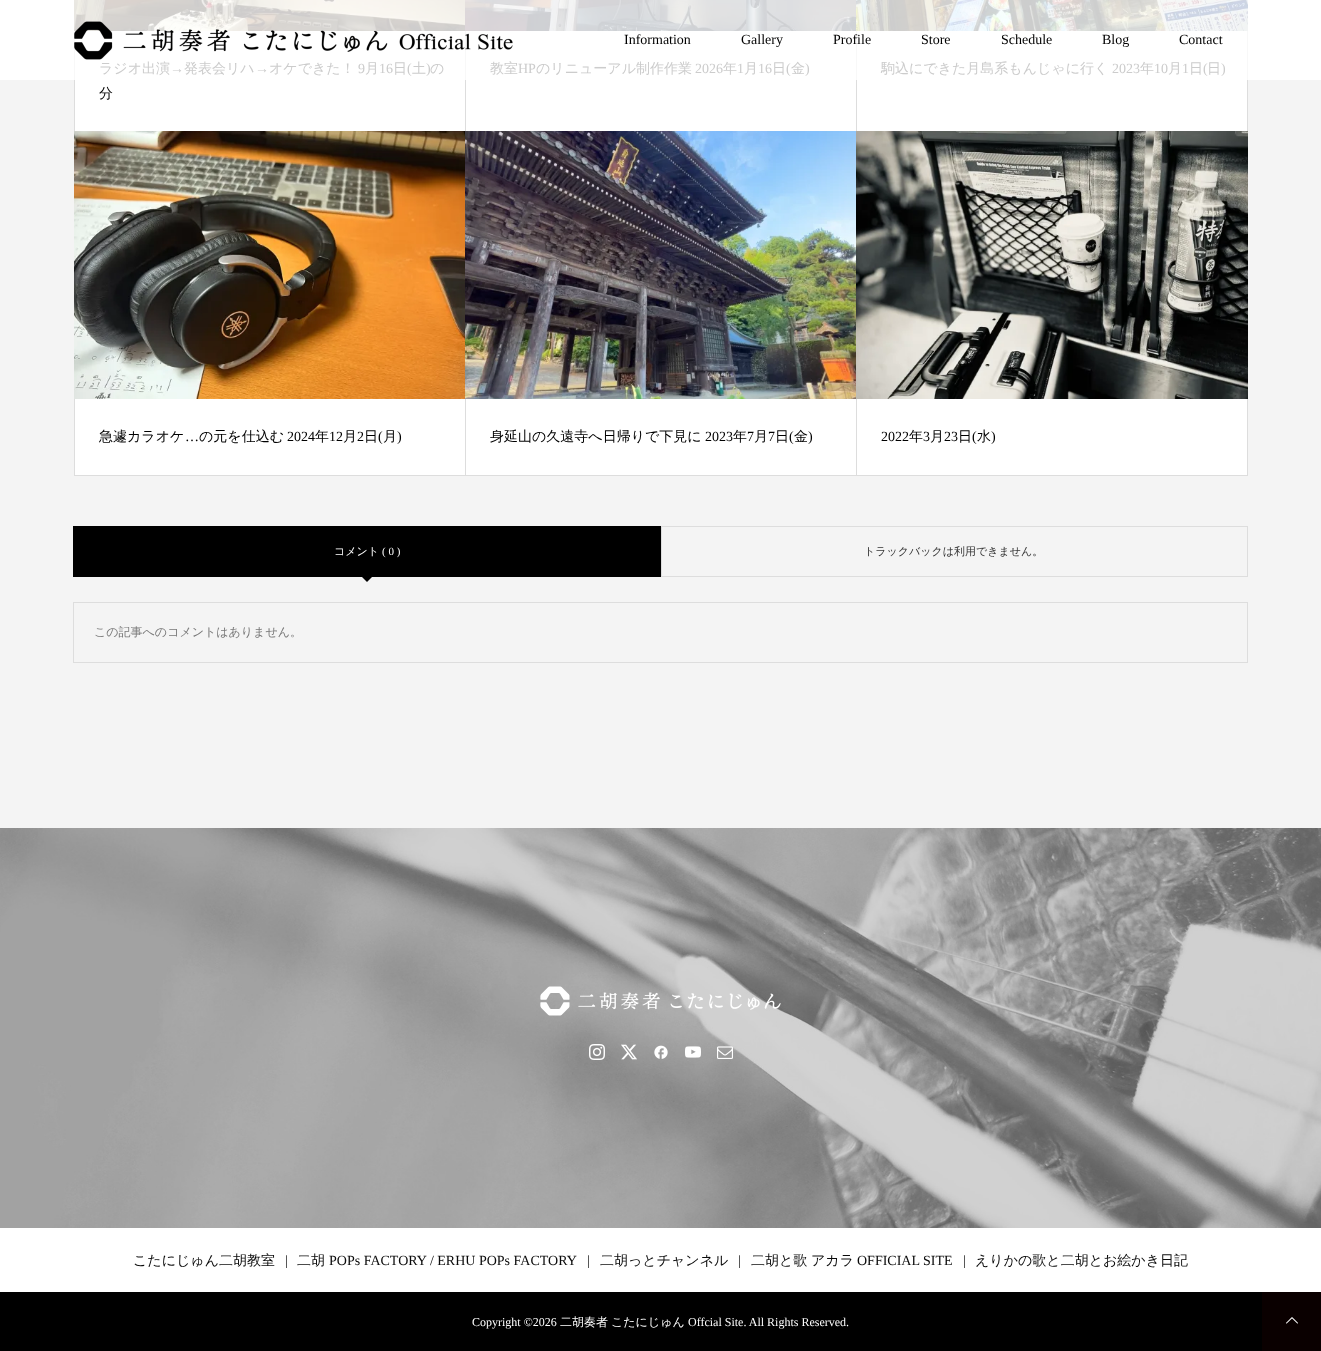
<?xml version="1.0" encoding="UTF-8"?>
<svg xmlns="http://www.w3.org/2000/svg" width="1321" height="1351">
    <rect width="100%" height="100%" fill="#FFFFFF"/>
    <rect x="74" y="31" width="1" height="49" fill="#F8F8F8"/>
    <rect x="465" y="31" width="1" height="49" fill="#F8F8F8"/>
    <image x="74" y="0" width="391" height="31" href="img_02.png"/>
    <image x="465" y="0" width="391" height="31" href="img_03.png"/>
    <image x="74" y="21" width="439" height="39" href="img_01.png"/>
    <text x="624" y="44" font-family="Liberation Serif" font-size="14" fill="#000000">Information</text>
    <text x="741" y="44" font-family="Liberation Serif" font-size="14" fill="#000000">Gallery</text>
    <rect x="856" y="31" width="1" height="49" fill="#F8F8F8"/>
    <text x="833" y="44" font-family="Liberation Serif" font-size="14" fill="#000000">Profile</text>
    <text x="921" y="44" font-family="Liberation Serif" font-size="14" fill="#000000">Store</text>
    <text x="1001" y="44" font-family="Liberation Serif" font-size="14" fill="#000000">Schedule</text>
    <text x="1102" y="44" font-family="Liberation Serif" font-size="14" fill="#000000">Blog</text>
    <text x="1179" y="44" font-family="Liberation Serif" font-size="14" fill="#000000">Contact</text>
    <rect x="0" y="80" width="1321" height="748" fill="#F4F4F4"/>
    <rect x="74" y="80" width="1" height="396" fill="#DDDDDD"/>
    <rect x="75" y="80" width="390" height="51" fill="#FFFFFF"/>
    <rect x="465" y="80" width="1" height="51" fill="#DDDDDD"/>
    <text x="99" y="73" font-family="WenQuanYi Zen Hei" font-size="14" font-weight="500" fill="#CCCCCC">ラジオ出演</text>
    <text x="170" y="73" font-family="Liberation Serif" font-size="14" fill="#CCCCCC">→</text>
    <text x="184" y="73" font-family="WenQuanYi Zen Hei" font-size="14" font-weight="500" fill="#CCCCCC">発表会リハ</text>
    <text x="255" y="73" font-family="Liberation Serif" font-size="14" fill="#CCCCCC">→</text>
    <text x="269" y="73" font-family="WenQuanYi Zen Hei" font-size="14" font-weight="500" fill="#CCCCCC">オケできた！</text>
    <text x="358" y="73" font-family="Liberation Serif" font-size="14" fill="#CCCCCC">9</text>
    <text x="365" y="73" font-family="WenQuanYi Zen Hei" font-size="14" font-weight="500" fill="#CCCCCC">月</text>
    <text x="379" y="73" font-family="Liberation Serif" font-size="14" fill="#CCCCCC">16</text>
    <text x="393" y="73" font-family="WenQuanYi Zen Hei" font-size="14" font-weight="500" fill="#CCCCCC">日</text>
    <text x="407" y="73" font-family="Liberation Serif" font-size="14" fill="#CCCCCC">(</text>
    <text x="412" y="73" font-family="WenQuanYi Zen Hei" font-size="14" font-weight="500" fill="#CCCCCC">土</text>
    <text x="426" y="73" font-family="Liberation Serif" font-size="14" fill="#CCCCCC">)</text>
    <text x="430" y="73" font-family="WenQuanYi Zen Hei" font-size="14" font-weight="500" fill="#CCCCCC">の</text>
    <text x="99" y="98" font-family="WenQuanYi Zen Hei" font-size="14" font-weight="500" fill="#000000">分</text>
    <rect x="466" y="80" width="390" height="51" fill="#FFFFFF"/>
    <rect x="856" y="80" width="1" height="51" fill="#DDDDDD"/>
    <text x="490" y="73" font-family="WenQuanYi Zen Hei" font-size="14" font-weight="500" fill="#CCCCCC">教室</text>
    <text x="518" y="73" font-family="Liberation Serif" font-size="14" fill="#CCCCCC">HP</text>
    <text x="536" y="73" font-family="WenQuanYi Zen Hei" font-size="14" font-weight="500" fill="#CCCCCC">のリニューアル制作作業</text>
    <text x="695" y="73" font-family="Liberation Serif" font-size="14" fill="#CCCCCC">2026</text>
    <text x="723" y="73" font-family="WenQuanYi Zen Hei" font-size="14" font-weight="500" fill="#CCCCCC">年</text>
    <text x="737" y="73" font-family="Liberation Serif" font-size="14" fill="#CCCCCC">1</text>
    <text x="744" y="73" font-family="WenQuanYi Zen Hei" font-size="14" font-weight="500" fill="#CCCCCC">月</text>
    <text x="758" y="73" font-family="Liberation Serif" font-size="14" fill="#CCCCCC">16</text>
    <text x="772" y="73" font-family="WenQuanYi Zen Hei" font-size="14" font-weight="500" fill="#CCCCCC">日</text>
    <text x="786" y="73" font-family="Liberation Serif" font-size="14" fill="#CCCCCC">(</text>
    <text x="791" y="73" font-family="WenQuanYi Zen Hei" font-size="14" font-weight="500" fill="#CCCCCC">金</text>
    <text x="805" y="73" font-family="Liberation Serif" font-size="14" fill="#CCCCCC">)</text>
    <rect x="857" y="80" width="390" height="51" fill="#FFFFFF"/>
    <rect x="1247" y="80" width="1" height="51" fill="#DDDDDD"/>
    <rect x="1247" y="31" width="1" height="49" fill="#F8F8F8"/>
    <image x="856" y="0" width="392" height="31" href="img_04.png"/>
    <text x="881" y="73" font-family="WenQuanYi Zen Hei" font-size="14" font-weight="500" fill="#CCCCCC">駒込にできた月島系もんじゃに行く</text>
    <text x="1112" y="73" font-family="Liberation Serif" font-size="14" fill="#CCCCCC">2023</text>
    <text x="1140" y="73" font-family="WenQuanYi Zen Hei" font-size="14" font-weight="500" fill="#CCCCCC">年</text>
    <text x="1154" y="73" font-family="Liberation Serif" font-size="14" fill="#CCCCCC">10</text>
    <text x="1168" y="73" font-family="WenQuanYi Zen Hei" font-size="14" font-weight="500" fill="#CCCCCC">月</text>
    <text x="1182" y="73" font-family="Liberation Serif" font-size="14" fill="#CCCCCC">1</text>
    <text x="1189" y="73" font-family="WenQuanYi Zen Hei" font-size="14" font-weight="500" fill="#CCCCCC">日</text>
    <text x="1203" y="73" font-family="Liberation Serif" font-size="14" fill="#CCCCCC">(</text>
    <text x="1207" y="73" font-family="WenQuanYi Zen Hei" font-size="14" font-weight="500" fill="#CCCCCC">日</text>
    <text x="1221" y="73" font-family="Liberation Serif" font-size="14" fill="#CCCCCC">)</text>
    <rect x="75" y="399" width="390" height="76" fill="#FFFFFF"/>
    <rect x="465" y="399" width="1" height="77" fill="#DDDDDD"/>
    <rect x="75" y="475" width="391" height="1" fill="#DDDDDD"/>
    <image x="74" y="131" width="391" height="268" href="img_05.png"/>
    <text x="99" y="441" font-family="WenQuanYi Zen Hei" font-size="14" font-weight="500" fill="#000000">急遽カラオケ</text>
    <text x="185" y="441" font-family="Liberation Serif" font-size="14" fill="#000000">…</text>
    <text x="199" y="441" font-family="WenQuanYi Zen Hei" font-size="14" font-weight="500" fill="#000000">の元を仕込む</text>
    <text x="287" y="441" font-family="Liberation Serif" font-size="14" fill="#000000">2024</text>
    <text x="315" y="441" font-family="WenQuanYi Zen Hei" font-size="14" font-weight="500" fill="#000000">年</text>
    <text x="329" y="441" font-family="Liberation Serif" font-size="14" fill="#000000">12</text>
    <text x="343" y="441" font-family="WenQuanYi Zen Hei" font-size="14" font-weight="500" fill="#000000">月</text>
    <text x="357" y="441" font-family="Liberation Serif" font-size="14" fill="#000000">2</text>
    <text x="364" y="441" font-family="WenQuanYi Zen Hei" font-size="14" font-weight="500" fill="#000000">日</text>
    <text x="378" y="441" font-family="Liberation Serif" font-size="14" fill="#000000">(</text>
    <text x="383" y="441" font-family="WenQuanYi Zen Hei" font-size="14" font-weight="500" fill="#000000">月</text>
    <text x="397" y="441" font-family="Liberation Serif" font-size="14" fill="#000000">)</text>
    <rect x="466" y="399" width="390" height="76" fill="#FFFFFF"/>
    <rect x="856" y="399" width="1" height="77" fill="#DDDDDD"/>
    <rect x="466" y="475" width="391" height="1" fill="#DDDDDD"/>
    <image x="465" y="131" width="391" height="268" href="img_06.png"/>
    <text x="490" y="441" font-family="WenQuanYi Zen Hei" font-size="14" font-weight="500" fill="#000000">身延山の久遠寺へ日帰りで下見に</text>
    <text x="705" y="441" font-family="Liberation Serif" font-size="14" fill="#000000">2023</text>
    <text x="733" y="441" font-family="WenQuanYi Zen Hei" font-size="14" font-weight="500" fill="#000000">年</text>
    <text x="747" y="441" font-family="Liberation Serif" font-size="14" fill="#000000">7</text>
    <text x="754" y="441" font-family="WenQuanYi Zen Hei" font-size="14" font-weight="500" fill="#000000">月</text>
    <text x="768" y="441" font-family="Liberation Serif" font-size="14" fill="#000000">7</text>
    <text x="775" y="441" font-family="WenQuanYi Zen Hei" font-size="14" font-weight="500" fill="#000000">日</text>
    <text x="789" y="441" font-family="Liberation Serif" font-size="14" fill="#000000">(</text>
    <text x="794" y="441" font-family="WenQuanYi Zen Hei" font-size="14" font-weight="500" fill="#000000">金</text>
    <text x="808" y="441" font-family="Liberation Serif" font-size="14" fill="#000000">)</text>
    <rect x="857" y="399" width="390" height="76" fill="#FFFFFF"/>
    <rect x="1247" y="399" width="1" height="77" fill="#DDDDDD"/>
    <rect x="857" y="475" width="391" height="1" fill="#DDDDDD"/>
    <image x="856" y="131" width="392" height="268" href="img_07.png"/>
    <text x="881" y="441" font-family="Liberation Serif" font-size="14" fill="#000000">2022</text>
    <text x="909" y="441" font-family="WenQuanYi Zen Hei" font-size="14" font-weight="500" fill="#000000">年</text>
    <text x="923" y="441" font-family="Liberation Serif" font-size="14" fill="#000000">3</text>
    <text x="930" y="441" font-family="WenQuanYi Zen Hei" font-size="14" font-weight="500" fill="#000000">月</text>
    <text x="944" y="441" font-family="Liberation Serif" font-size="14" fill="#000000">23</text>
    <text x="958" y="441" font-family="WenQuanYi Zen Hei" font-size="14" font-weight="500" fill="#000000">日</text>
    <text x="972" y="441" font-family="Liberation Serif" font-size="14" fill="#000000">(</text>
    <text x="977" y="441" font-family="WenQuanYi Zen Hei" font-size="14" font-weight="500" fill="#000000">水</text>
    <text x="991" y="441" font-family="Liberation Serif" font-size="14" fill="#000000">)</text>
    <rect x="73" y="526" width="588" height="51" fill="#000000"/>
    <text x="334" y="555" font-family="WenQuanYi Zen Hei" font-size="11" font-weight="500" fill="#FFFFFF">コメント</text>
    <text x="382" y="555" font-family="Liberation Serif" font-size="11" fill="#FFFFFF">( 0 )</text>
    <path d="M 361 576 H 373 L 367 582 Z" fill="#000000"/>
    <rect x="661.5" y="526.5" width="586" height="50" fill="none" stroke="#DDDDDD"/>
    <text x="864" y="555" font-family="WenQuanYi Zen Hei" font-size="11" font-weight="500" fill="#333333">トラックバックは利用できません。</text>
    <rect x="73.5" y="602.5" width="1174" height="60" fill="none" stroke="#DDDDDD"/>
    <text x="94" y="636" font-family="WenQuanYi Zen Hei" font-size="12" font-weight="500" fill="#777777">この記事へのコメントはありません。</text>
    <image x="0" y="828" width="1321" height="400" href="img_08.png"/>
    <image x="540" y="986" width="241" height="30" href="img_09.png"/>
    <image x="589" y="1044" width="16" height="16" href="img_10.png"/>
    <image x="621" y="1044" width="16" height="16" href="img_11.png"/>
    <image x="654" y="1045" width="14" height="14" href="img_12.png"/>
    <image x="685" y="1046" width="16" height="12" href="img_13.png"/>
    <image x="717" y="1046" width="16" height="13" href="img_14.png"/>
    <text x="133" y="1265" font-family="WenQuanYi Zen Hei" font-size="14" font-weight="500" fill="#0A0A0A">こたにじゅん二胡教室</text>
    <text x="285" y="1265" font-family="Liberation Serif" font-size="14" fill="#0A0A0A">|</text>
    <text x="297" y="1265" font-family="WenQuanYi Zen Hei" font-size="14" font-weight="500" fill="#0A0A0A">二胡</text>
    <text x="329" y="1265" font-family="Liberation Serif" font-size="14" fill="#0A0A0A">POPs FACTORY / ERHU POPs FACTORY</text>
    <text x="587" y="1265" font-family="Liberation Serif" font-size="14" fill="#0A0A0A">|</text>
    <text x="600" y="1265" font-family="WenQuanYi Zen Hei" font-size="14" font-weight="500" fill="#0A0A0A">二胡っとチャンネル</text>
    <text x="738" y="1265" font-family="Liberation Serif" font-size="14" fill="#0A0A0A">|</text>
    <text x="751" y="1265" font-family="WenQuanYi Zen Hei" font-size="14" font-weight="500" fill="#0A0A0A">二胡と歌</text>
    <text x="811" y="1265" font-family="WenQuanYi Zen Hei" font-size="14" font-weight="500" fill="#0A0A0A">アカラ</text>
    <text x="857" y="1265" font-family="Liberation Serif" font-size="14" fill="#0A0A0A">OFFICIAL SITE</text>
    <text x="963" y="1265" font-family="Liberation Serif" font-size="14" fill="#0A0A0A">|</text>
    <text x="975" y="1265" font-family="WenQuanYi Zen Hei" font-size="14" font-weight="500" fill="#0A0A0A">えりかの歌と二胡とお絵かき日記</text>
    <rect x="0" y="1292" width="1262" height="59" fill="#000000"/>
    <text x="472" y="1326" font-family="Liberation Serif" font-size="12" fill="#FFFFFF">Copyright ©2026</text>
    <text x="560" y="1326" font-family="WenQuanYi Zen Hei" font-size="12" font-weight="500" fill="#FFFFFF">二胡奏者</text>
    <text x="611" y="1326" font-family="WenQuanYi Zen Hei" font-size="12" font-weight="500" fill="#FFFFFF">こたにじゅん</text>
    <text x="688" y="1326" font-family="Liberation Serif" font-size="12" fill="#FFFFFF">Offcial Site. All Rights Reserved.</text>
    <rect x="1262" y="1292" width="59" height="59" fill="#0A0000"/>
    <image x="1286" y="1317" width="12" height="7" href="img_15.png"/>
</svg>
